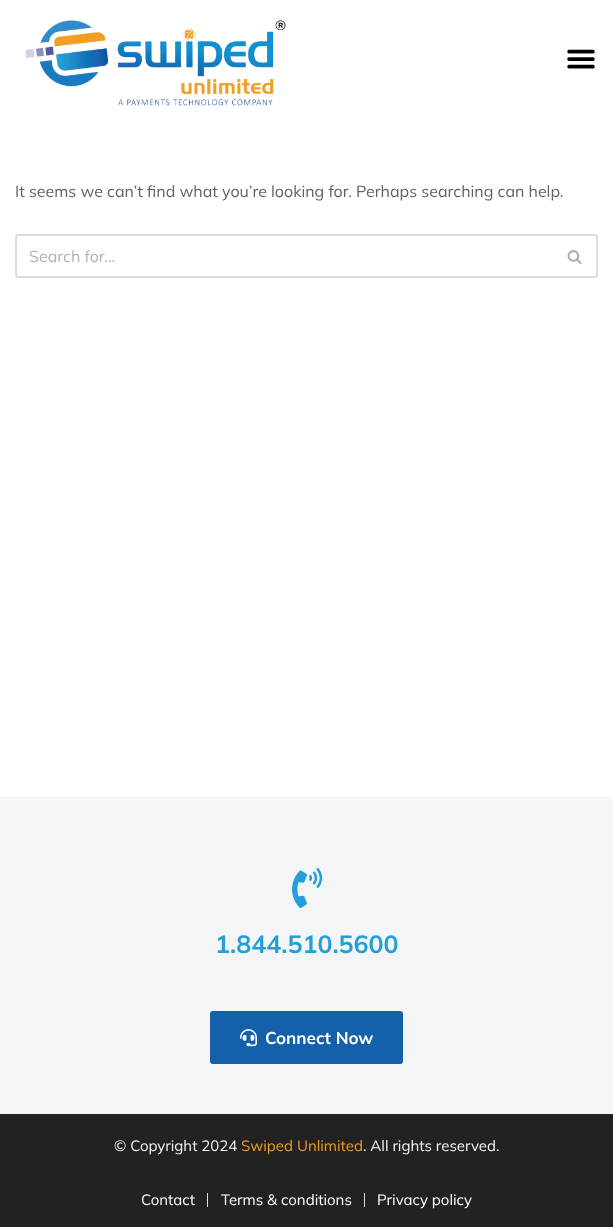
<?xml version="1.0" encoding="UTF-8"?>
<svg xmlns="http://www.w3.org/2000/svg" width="613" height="1227">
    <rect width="100%" height="100%" fill="#FFFFFF"/>
    <image x="25" y="20" width="261" height="86" href="img_01.png"/>
    <image x="567" y="49" width="28" height="20" href="img_02.png"/>
    <text x="15" y="197" font-family="Mulish" font-size="16" fill="#626262">It seems we can’t find what you’re looking for. Perhaps searching can help.</text>
    <path d="M 18 234 H 553 V 278 H 18 C 16 278 15 277 15 275 V 237 C 15 235 16 234 18 234 Z M 18 236 H 553 V 276 H 18 C 17 276 17 276 17 275 V 237 C 17 236 17 236 18 236 Z" fill="#DDDDDD" fill-rule="evenodd"/>
    <text x="29" y="262" font-family="Mulish" font-size="16" fill="#B1B1B1">Search for...</text>
    <path d="M 553 234 H 595 C 597 234 598 235 598 237 V 275 C 598 277 597 278 595 278 H 553 Z M 553 236 H 595 C 596 236 596 236 596 237 V 275 C 596 276 596 276 595 276 H 553 Z" fill="#DDDDDD" fill-rule="evenodd"/>
    <image x="567" y="250" width="15" height="14" href="img_03.png"/>
    <rect x="0" y="797" width="613" height="317" fill="#F4F5F7"/>
    <image x="292" y="867" width="31" height="41" href="img_04.png"/>
    <text x="215" y="953" font-family="Mulish" font-size="25" font-weight="700" fill="#239ED9">1.844.510.5600</text>
    <rect x="210" y="1011" width="193" height="53" rx="3" fill="#1460AB"/>
    <image x="240" y="1029" width="17" height="18" href="img_05.png"/>
    <text x="265" y="1044" font-family="Mulish" font-size="17" font-weight="700" fill="#FFFFFF">Connect Now</text>
    <rect x="0" y="1114" width="613" height="113" fill="#222222"/>
    <text x="114" y="1151" font-family="Mulish" font-size="15" fill="#F4F5F7">© Copyright 2024</text>
    <text x="241" y="1151" font-family="Mulish" font-size="15" fill="#F29D24">Swiped Unlimited</text>
    <text x="363" y="1151" font-family="Mulish" font-size="15" fill="#F4F5F7">. All rights reserved.</text>
    <text x="141" y="1205" font-family="Mulish" font-size="15" fill="#FFFFFF">Contact</text>
    <rect x="207" y="1193" width="1" height="14" fill="#DDDDDD"/>
    <text x="221" y="1205" font-family="Mulish" font-size="15" fill="#FFFFFF">Terms &amp; conditions</text>
    <rect x="364" y="1193" width="1" height="14" fill="#DDDDDD"/>
    <text x="377" y="1205" font-family="Mulish" font-size="15" fill="#FFFFFF">Privacy policy</text>
</svg>
